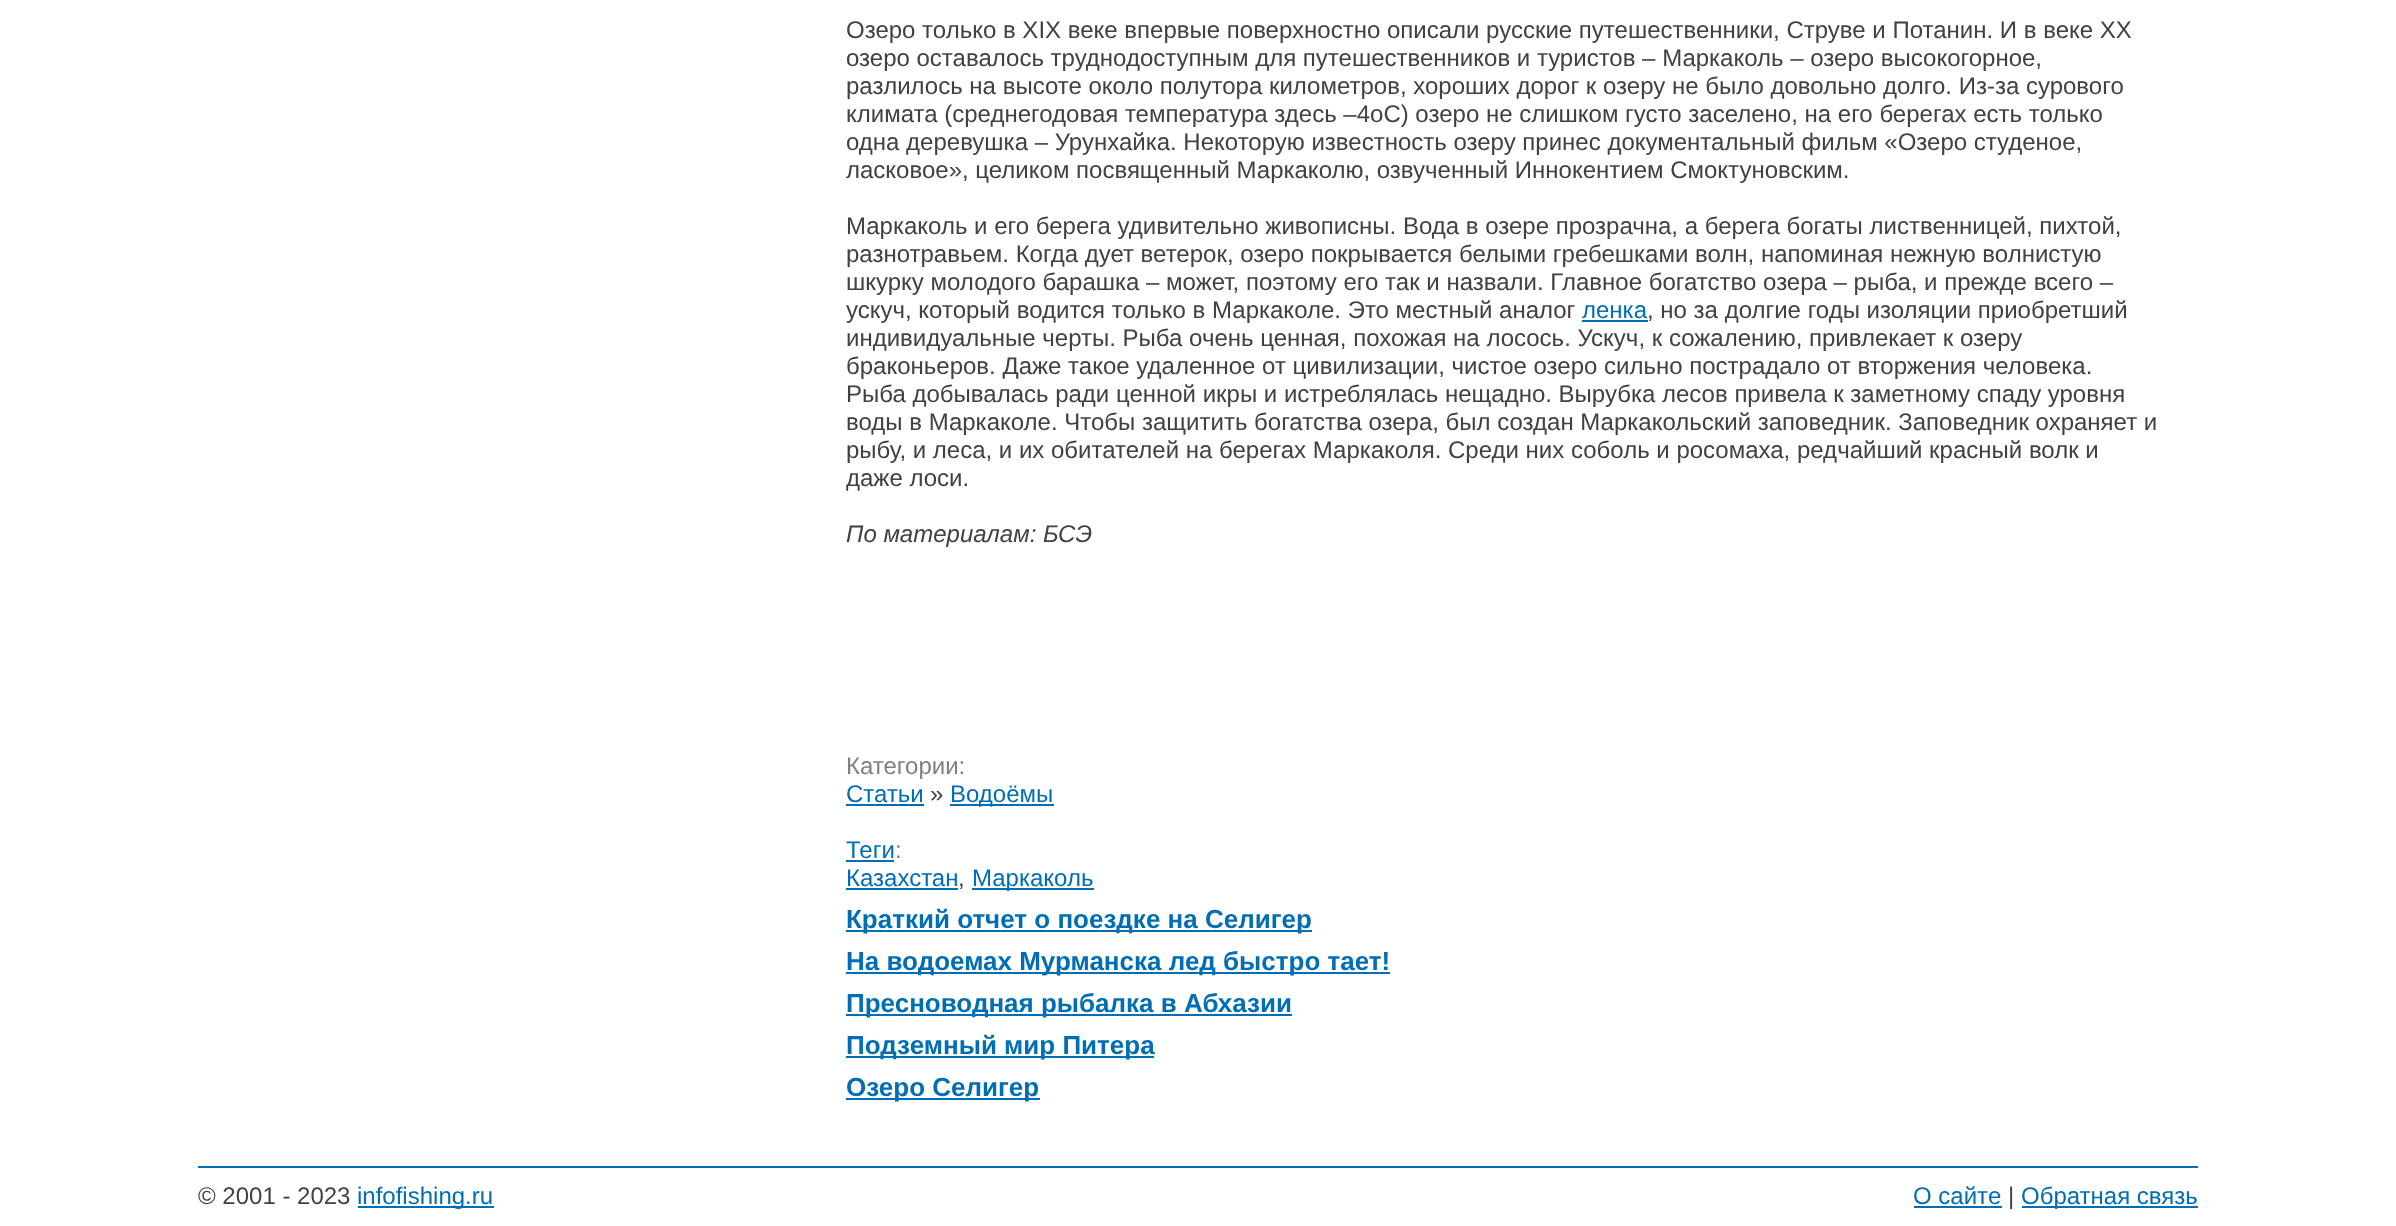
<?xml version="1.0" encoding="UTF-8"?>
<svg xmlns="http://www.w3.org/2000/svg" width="2396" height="1226">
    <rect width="100%" height="100%" fill="#FFFFFF"/>
    <text font-family="Liberation Sans" font-size="24" fill="#414141">
        <tspan x="846" y="38">Озеро только в XIX веке впервые поверхностно описали русские путешественники, Струве и Потанин. И в веке XX</tspan>
        <tspan x="846" y="66">озеро оставалось труднодоступным для путешественников и туристов – Маркаколь – озеро высокогорное,</tspan>
        <tspan x="846" y="94">разлилось на высоте около полутора километров, хороших дорог к озеру не было довольно долго. Из-за сурового</tspan>
        <tspan x="846" y="122">климата (среднегодовая температура здесь –4oС) озеро не слишком густо заселено, на его берегах есть только</tspan>
        <tspan x="846" y="150">одна деревушка – Урунхайка. Некоторую известность озеру принес документальный фильм «Озеро студеное,</tspan>
        <tspan x="846" y="178">ласковое», целиком посвященный Маркаколю, озвученный Иннокентием Смоктуновским.</tspan>
    </text>
    <text font-family="Liberation Sans" font-size="24" fill="#414141">
        <tspan x="846" y="234">Маркаколь и его берега удивительно живописны. Вода в озере прозрачна, а берега богаты лиственницей, пихтой,</tspan>
        <tspan x="846" y="262">разнотравьем. Когда дует ветерок, озеро покрывается белыми гребешками волн, напоминая нежную волнистую</tspan>
        <tspan x="846" y="290">шкурку молодого барашка – может, поэтому его так и назвали. Главное богатство озера – рыба, и прежде всего –</tspan>
        <tspan x="846" y="318">ускуч, который водится только в Маркаколе. Это местный аналог</tspan>
    </text>
    <text x="1582" y="318" font-family="Liberation Sans" font-size="24" fill="#006EB4">ленка</text>
    <rect x="1582" y="320" width="66" height="2" fill="#006EB4"/>
    <text x="1647" y="318" font-family="Liberation Sans" font-size="24" fill="#414141">, но за долгие годы изоляции приобретший</text>
    <text font-family="Liberation Sans" font-size="24" fill="#414141">
        <tspan x="846" y="346">индивидуальные черты. Рыба очень ценная, похожая на лосось. Ускуч, к сожалению, привлекает к озеру</tspan>
        <tspan x="846" y="374">браконьеров. Даже такое удаленное от цивилизации, чистое озеро сильно пострадало от вторжения человека.</tspan>
        <tspan x="846" y="402">Рыба добывалась ради ценной икры и истреблялась нещадно. Вырубка лесов привела к заметному спаду уровня</tspan>
        <tspan x="846" y="430">воды в Маркаколе. Чтобы защитить богатства озера, был создан Маркакольский заповедник. Заповедник охраняет и</tspan>
        <tspan x="846" y="458">рыбу, и леса, и их обитателей на берегах Маркаколя. Среди них соболь и росомаха, редчайший красный волк и</tspan>
        <tspan x="846" y="486">даже лоси.</tspan>
    </text>
    <text x="846" y="542" font-family="Liberation Sans" font-size="24" font-style="italic" fill="#414141">По материалам: БСЭ</text>
    <text x="846" y="774" font-family="Liberation Sans" font-size="24" fill="#808080">Категории:</text>
    <text x="846" y="802" font-family="Liberation Sans" font-size="24" fill="#006EB4">Статьи</text>
    <rect x="846" y="804" width="78" height="2" fill="#006EB4"/>
    <text x="930" y="802" font-family="Liberation Sans" font-size="24" fill="#414141">»</text>
    <rect x="950" y="804" width="104" height="2" fill="#006EB4"/>
    <text x="950" y="802" font-family="Liberation Sans" font-size="24" fill="#006EB4">Водоёмы</text>
    <text x="846" y="858" font-family="Liberation Sans" font-size="24" fill="#006EB4">Теги</text>
    <rect x="846" y="860" width="48" height="2" fill="#006EB4"/>
    <text x="895" y="858" font-family="Liberation Sans" font-size="24" fill="#808080">:</text>
    <text x="846" y="886" font-family="Liberation Sans" font-size="24" fill="#006EB4">Казахстан</text>
    <rect x="846" y="888" width="112" height="2" fill="#006EB4"/>
    <text x="958" y="886" font-family="Liberation Sans" font-size="24" fill="#414141">,</text>
    <rect x="972" y="888" width="122" height="2" fill="#006EB4"/>
    <text x="972" y="886" font-family="Liberation Sans" font-size="24" fill="#006EB4">Маркаколь</text>
    <rect x="846" y="930" width="466" height="2" fill="#006EB4"/>
    <text x="846" y="928" font-family="Liberation Sans" font-size="26" font-weight="700" fill="#006EB4">Краткий отчет о поездке на Селигер</text>
    <rect x="846" y="972" width="544" height="2" fill="#006EB4"/>
    <text x="846" y="970" font-family="Liberation Sans" font-size="26" font-weight="700" fill="#006EB4">На водоемах Мурманска лед быстро тает!</text>
    <rect x="846" y="1014" width="446" height="2" fill="#006EB4"/>
    <text x="846" y="1012" font-family="Liberation Sans" font-size="26" font-weight="700" fill="#006EB4">Пресноводная рыбалка в Абхазии</text>
    <rect x="846" y="1056" width="308" height="2" fill="#006EB4"/>
    <text x="846" y="1054" font-family="Liberation Sans" font-size="26" font-weight="700" fill="#006EB4">Подземный мир Питера</text>
    <rect x="846" y="1098" width="194" height="2" fill="#006EB4"/>
    <text x="846" y="1096" font-family="Liberation Sans" font-size="26" font-weight="700" fill="#006EB4">Озеро Селигер</text>
    <rect x="198" y="1166" width="2000" height="2" fill="#006EB4"/>
    <text x="198" y="1204" font-family="Liberation Sans" font-size="24" fill="#414141">© 2001 - 2023</text>
    <rect x="358" y="1206" width="136" height="2" fill="#006EB4"/>
    <text x="357" y="1204" font-family="Liberation Sans" font-size="24" fill="#006EB4">infofishing.ru</text>
    <text x="1913" y="1204" font-family="Liberation Sans" font-size="24" fill="#006EB4">О сайтe</text>
    <rect x="1914" y="1206" width="88" height="2" fill="#006EB4"/>
    <text x="2008" y="1204" font-family="Liberation Sans" font-size="24" fill="#414141">|</text>
    <rect x="2022" y="1206" width="176" height="2" fill="#006EB4"/>
    <text x="2021" y="1204" font-family="Liberation Sans" font-size="24" fill="#006EB4">Обратная связь</text>
</svg>
